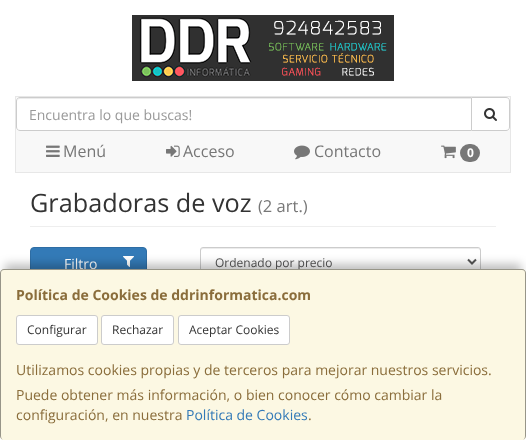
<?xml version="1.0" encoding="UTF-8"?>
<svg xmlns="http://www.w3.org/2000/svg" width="526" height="440">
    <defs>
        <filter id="blur1" x="-50%" y="-200%" width="200%" height="500%"><feGaussianBlur stdDeviation="5"/></filter>
    </defs>
    <rect width="100%" height="100%" fill="#FFFFFF"/>
    <image x="132" y="15" width="262" height="66" href="img_01.png"/>
    <rect x="15.5" y="96.5" width="495" height="76" fill="#F8F8F8" stroke="#E7E7E7"/>
    <path d="M 471.5 97.5 H 506 C 508 97.5 509.5 99 509.5 101 V 127 C 509.5 129 508 130.5 506 130.5 H 471.5 Z" fill="#FFFFFF" stroke="#CCCCCC"/>
    <path d="M 20 97 H 472 V 131 H 20 C 18 131 16 129 16 127 V 101 C 16 99 18 97 20 97 Z" fill="#FFFFFF"/>
    <path d="M 20 99 H 471 V 98 H 20 C 18 98 17 100 17 102 C 17 100 18 99 20 99 Z" fill="#ECECEC"/>
    <path d="M 20 97.5 H 471.5 V 130.5 H 20 C 18 130.5 16.5 129 16.5 127 V 101 C 16.5 99 18 97.5 20 97.5 Z" fill="none" stroke="#CCCCCC"/>
    <text x="29" y="120" font-family="Open Sans" font-size="14" fill="#999999">Encuentra lo que buscas!</text>
    <image x="484" y="108" width="13" height="13" href="img_02.png"/>
    <image x="46" y="145" width="14" height="12" href="img_03.png"/>
    <text x="63" y="157" font-family="Open Sans" font-size="16" fill="#777777">Menú</text>
    <image x="166" y="145" width="14" height="12" href="img_04.png"/>
    <text x="183" y="157" font-family="Open Sans" font-size="16" fill="#777777">Acceso</text>
    <image x="294" y="145" width="16" height="15" href="img_05.png"/>
    <text x="314" y="157" font-family="Open Sans" font-size="16" fill="#777777">Contacto</text>
    <image x="441" y="145" width="15" height="14" href="img_06.png"/>
    <rect x="460" y="144" width="20" height="18" rx="9" fill="#777777"/>
    <text x="467" y="157" font-family="Open Sans" font-size="12" font-weight="700" fill="#FFFFFF">0</text>
    <rect x="30" y="226" width="466" height="1" fill="#EEEEEE"/>
    <text x="30" y="212" font-family="Open Sans" font-size="25.25" fill="#333333">Grabadoras de voz</text>
    <text x="258" y="212" font-family="Open Sans" font-size="16.5" fill="#777777">(2 art.)</text>
    <rect x="30.5" y="247.5" width="116" height="33" rx="3.5" fill="#337AB7" stroke="#2E6DA4"/>
    <text x="64" y="269" font-family="Open Sans" font-size="14" fill="#FFFFFF">Filtro</text>
    <image x="123" y="256" width="11" height="11" href="img_07.png"/>
    <path d="M 203 249 H 478 C 479 249 480 250 480 251 V 249 L 478 248 H 203 C 201 248 201 250 201 251 C 201 250 202 249 203 249 Z" fill="#ECECEC"/>
    <rect x="200.5" y="247.5" width="280" height="29" rx="2.5" fill="none" stroke="#CCCCCC"/>
    <path d="M 468 259.5 L 472 263.5 L 476 259.5" fill="none" stroke="#555555" stroke-width="2"/>
    <text x="215" y="267" font-family="Open Sans" font-size="12" fill="#555555">Ordenado por precio</text>
    <rect x="5" y="264" width="516" height="161" fill="#000000" fill-opacity="0.25" filter="url(#blur1)"/>
    <rect x="0" y="269" width="526" height="171" rx="4" fill="#FCF8E3"/>
    <path d="M 4 269 H 522 C 524 269 526 271 526 273 V 436 C 526 438 524 440 522 440 H 4 C 2 440 0 438 0 436 V 273 C 0 271 2 269 4 269 Z M 4 270 H 522 C 524 270 525 271 525 273 V 436 C 525 438 524 440 522 440 H 4 C 2 440 1 438 1 436 V 273 C 1 271 2 270 4 270 Z" fill="#000000" fill-opacity="0.4" fill-rule="evenodd"/>
    <text x="16" y="300" font-family="Open Sans" font-size="14" font-weight="700" fill="#8A6D3B">Política de Cookies de ddrinformatica.com</text>
    <rect x="16.5" y="315.5" width="81" height="29" rx="2.5" fill="#FFFFFF" stroke="#CCCCCC"/>
    <text x="27" y="334" font-family="Open Sans" font-size="12" fill="#333333">Configurar</text>
    <rect x="101.5" y="315.5" width="72" height="29" rx="2.5" fill="#FFFFFF" stroke="#CCCCCC"/>
    <text x="112" y="334" font-family="Open Sans" font-size="12" fill="#333333">Rechazar</text>
    <rect x="178.5" y="315.5" width="111" height="29" rx="2.5" fill="#FFFFFF" stroke="#CCCCCC"/>
    <text x="189" y="334" font-family="Open Sans" font-size="12" fill="#333333">Aceptar Cookies</text>
    <text font-family="Open Sans" font-size="14" fill="#8A6D3B">
        <tspan x="16" y="375">Utilizamos cookies propias y de terceros para mejorar nuestros servicios.</tspan>
        <tspan x="16" y="400">Puede obtener más información, o bien conocer cómo cambiar la</tspan>
        <tspan x="16" y="420">configuración, en nuestra</tspan>
    </text>
    <text x="186" y="420" font-family="Open Sans" font-size="14" fill="#337AB7">Política de Cookies</text>
    <text x="308" y="420" font-family="Open Sans" font-size="14" fill="#8A6D3B">.</text>
</svg>
